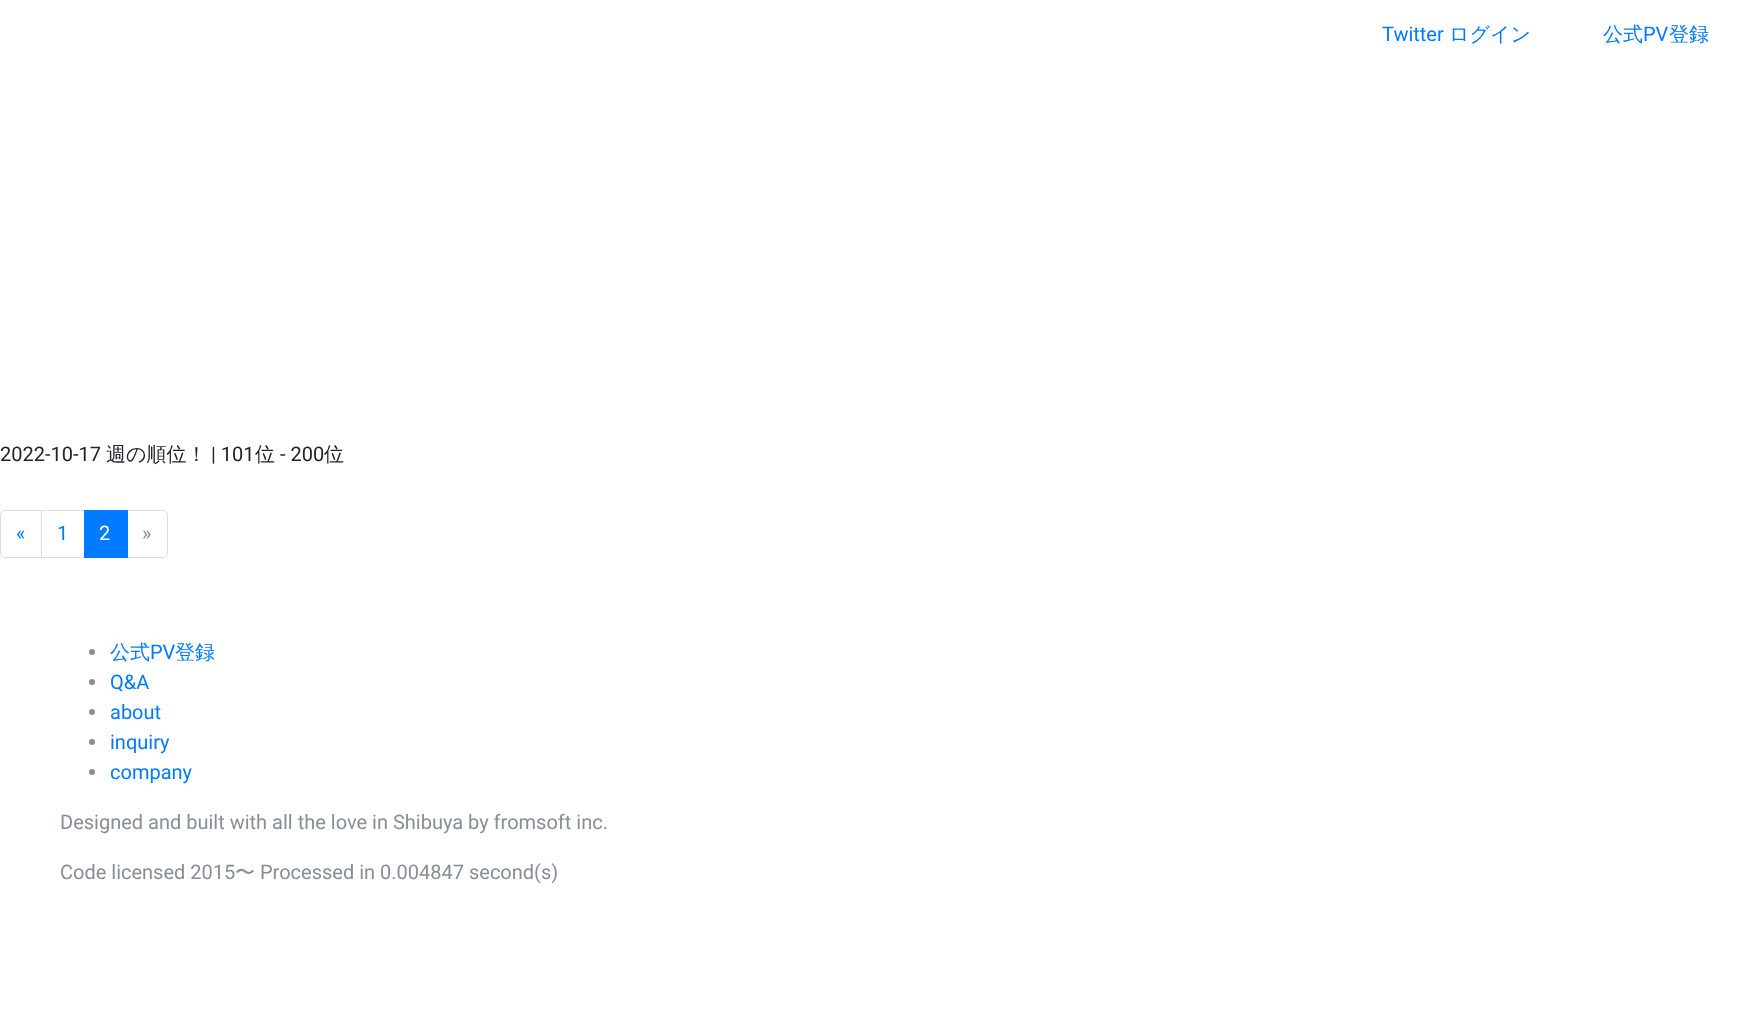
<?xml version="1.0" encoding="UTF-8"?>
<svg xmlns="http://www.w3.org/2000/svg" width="1745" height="1026">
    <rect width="100%" height="100%" fill="#FFFFFF"/>
    <text x="1382" y="41" font-family="Roboto" font-size="20" fill="#007BFF">Twitter</text>
    <text x="1449" y="41" font-family="WenQuanYi Zen Hei" font-size="20" font-weight="500" fill="#007BFF">ログイン</text>
    <text x="1603" y="41" font-family="WenQuanYi Zen Hei" font-size="20" font-weight="500" fill="#007BFF">公式</text>
    <text x="1643" y="41" font-family="Roboto" font-size="20" fill="#007BFF">PV</text>
    <text x="1669" y="41" font-family="WenQuanYi Zen Hei" font-size="20" font-weight="500" fill="#007BFF">登録</text>
    <text x="0" y="461" font-family="Roboto" font-size="20" fill="#212529">2022-10-17</text>
    <text x="106" y="461" font-family="WenQuanYi Zen Hei" font-size="20" font-weight="500" fill="#212529">週の順位！</text>
    <text x="211" y="461" font-family="Roboto" font-size="20" fill="#212529">| 101</text>
    <text x="255" y="461" font-family="WenQuanYi Zen Hei" font-size="20" font-weight="500" fill="#212529">位</text>
    <text x="280" y="461" font-family="Roboto" font-size="20" fill="#212529">- 200</text>
    <text x="324" y="461" font-family="WenQuanYi Zen Hei" font-size="20" font-weight="500" fill="#212529">位</text>
    <path d="M 5 510.5 H 42.5 V 557.5 H 5 C 2.5 557.5 0.5 555.5 0.5 553 V 515 C 0.5 512.5 2.5 510.5 5 510.5 Z" fill="none" stroke="#DDDDDD"/>
    <text x="16" y="540" font-family="Roboto" font-size="20" fill="#007BFF">«</text>
    <rect x="42" y="511" width="1" height="46" fill="#FFFFFF"/>
    <rect x="41.5" y="510.5" width="43" height="47" fill="none" stroke="#DDDDDD"/>
    <text x="57" y="540" font-family="Roboto" font-size="20" fill="#007BFF">1</text>
    <path d="M 126.5 510.5 H 163 C 165.5 510.5 167.5 512.5 167.5 515 V 553 C 167.5 555.5 165.5 557.5 163 557.5 H 126.5 Z" fill="none" stroke="#DDDDDD"/>
    <rect x="84" y="510" width="44" height="48" fill="#007BFF"/>
    <text x="99" y="540" font-family="Roboto" font-size="20" fill="#FFFFFF">2</text>
    <text x="142" y="540" font-family="Roboto" font-size="20" fill="#868E96">»</text>
    <circle cx="92" cy="652" r="3" fill="#868E96"/>
    <text x="110" y="659" font-family="WenQuanYi Zen Hei" font-size="20" font-weight="500" fill="#007BFF">公式</text>
    <text x="150" y="659" font-family="Roboto" font-size="20" fill="#007BFF">PV</text>
    <text x="175" y="659" font-family="WenQuanYi Zen Hei" font-size="20" font-weight="500" fill="#007BFF">登録</text>
    <circle cx="92" cy="682" r="3" fill="#868E96"/>
    <text x="110" y="689" font-family="Roboto" font-size="20" fill="#007BFF">Q&amp;A</text>
    <circle cx="92" cy="712" r="3" fill="#868E96"/>
    <text x="110" y="719" font-family="Roboto" font-size="20" fill="#007BFF">about</text>
    <circle cx="92" cy="742" r="3" fill="#868E96"/>
    <text x="110" y="749" font-family="Roboto" font-size="20" fill="#007BFF">inquiry</text>
    <circle cx="92" cy="772" r="3" fill="#868E96"/>
    <text x="110" y="779" font-family="Roboto" font-size="20" fill="#007BFF">company</text>
    <text x="60" y="829" font-family="Roboto" font-size="20" fill="#868E96">Designed and built with all the love in Shibuya by fromsoft inc.</text>
    <text x="60" y="879" font-family="Roboto" font-size="20" fill="#868E96">Code licensed 2015</text>
    <text x="235" y="879" font-family="WenQuanYi Zen Hei" font-size="20" font-weight="500" fill="#868E96">〜</text>
    <text x="260" y="879" font-family="Roboto" font-size="20" fill="#868E96">Processed in 0.004847 second(s)</text>
</svg>
